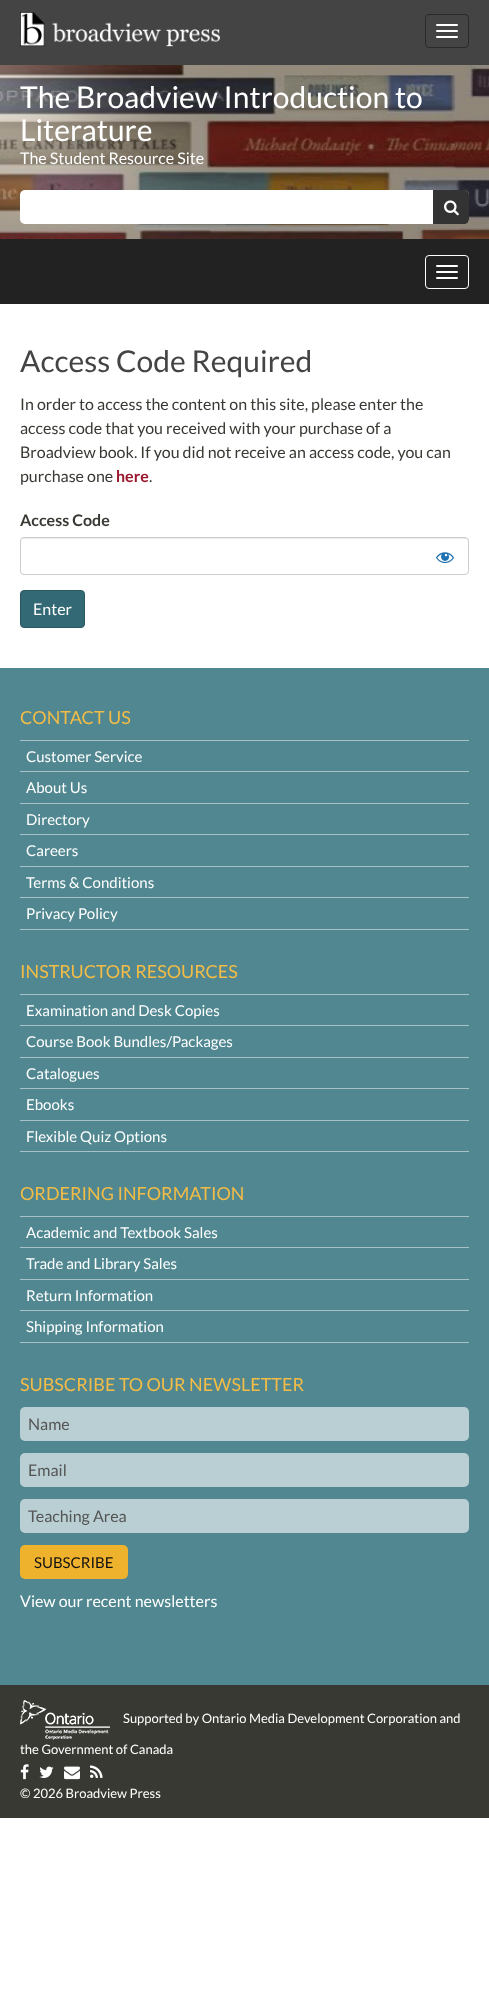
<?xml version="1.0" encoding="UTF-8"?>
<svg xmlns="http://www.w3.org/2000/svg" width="489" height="1999">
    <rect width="100%" height="100%" fill="#FFFFFF"/>
    <rect x="0" y="0" width="489" height="65" fill="#444444"/>
    <image x="20" y="12" width="200" height="35" href="img_01.png"/>
    <rect x="425.5" y="14.5" width="43" height="33" rx="3.5" fill="none" stroke="#292929"/>
    <rect x="436" y="24" width="22" height="2" rx="1" fill="#FFFFFF"/>
    <rect x="436" y="30" width="22" height="2" rx="1" fill="#FFFFFF"/>
    <rect x="436" y="36" width="22" height="2" rx="1" fill="#FFFFFF"/>
    <image x="0" y="65" width="489" height="174" href="img_02.png"/>
    <text font-family="Lato" font-size="30" fill="#FFFFFF">
        <tspan x="20" y="108">The Broadview Introduction to</tspan>
        <tspan x="20" y="141">Literature</tspan>
    </text>
    <text x="20" y="164" font-family="Lato" font-size="16" fill="#FFFFFF">The Student Resource Site</text>
    <rect x="20" y="190" width="449" height="34" rx="5" fill="#FFFFFF"/>
    <path d="M 433 190 H 464 C 467 190 469 192 469 195 V 219 C 469 222 467 224 464 224 H 433 Z" fill="#333333"/>
    <image x="444" y="200" width="15" height="16" href="img_03.png"/>
    <rect x="0" y="239" width="489" height="65" fill="#222222"/>
    <rect x="425.5" y="255.5" width="43" height="33" rx="3.5" fill="none" stroke="#FFFFFF"/>
    <rect x="436" y="265" width="22" height="2" rx="1" fill="#FFFFFF"/>
    <rect x="436" y="271" width="22" height="2" rx="1" fill="#FFFFFF"/>
    <rect x="436" y="277" width="22" height="2" rx="1" fill="#FFFFFF"/>
    <text x="20" y="372" font-family="Lato" font-size="30" fill="#444444">Access Code Required</text>
    <text font-family="Lato" font-size="16" fill="#373932">
        <tspan x="20" y="410">In order to access the content on this site, please enter the</tspan>
        <tspan x="20" y="434">access code that you received with your purchase of a</tspan>
        <tspan x="20" y="458">Broadview book. If you did not receive an access code, you can</tspan>
        <tspan x="20" y="482">purchase one</tspan>
    </text>
    <text x="116" y="482" font-family="Lato" font-size="16" font-weight="700" fill="#9D182E">here</text>
    <text x="149" y="482" font-family="Lato" font-size="16" fill="#373932">.</text>
    <text x="20" y="526" font-family="Lato" font-size="16" font-weight="700" fill="#373932">Access Code</text>
    <path d="M 24 539 H 465 C 467 539 468 540 468 542 C 468 540 467 538 465 538 H 23 L 21 540 V 542 C 21 540 22 539 24 539 Z" fill="#ECECEC"/>
    <rect x="20.5" y="537.5" width="448" height="37" rx="3.5" fill="none" stroke="#CCCCCC"/>
    <image x="436" y="552" width="18" height="11" href="img_04.png"/>
    <rect x="20.5" y="590.5" width="64" height="37" rx="3.5" fill="#336974" stroke="#2B5962"/>
    <text x="33" y="615" font-family="Lato" font-size="16" fill="#FFFFFF">Enter</text>
    <rect x="0" y="668" width="489" height="1017" fill="#508790"/>
    <text x="20" y="724" font-family="Lato" font-size="18" fill="#F2BC47">CONTACT US</text>
    <rect x="20" y="740" width="449" height="1" fill="#A8C3C8"/>
    <rect x="20" y="771" width="449" height="1" fill="#A8C3C8"/>
    <text x="26" y="762" font-family="Lato" font-size="15" fill="#FFFFFF">Customer Service</text>
    <rect x="20" y="803" width="449" height="1" fill="#A8C3C8"/>
    <text x="26" y="793" font-family="Lato" font-size="15" fill="#FFFFFF">About Us</text>
    <rect x="20" y="834" width="449" height="1" fill="#A8C3C8"/>
    <text x="26" y="825" font-family="Lato" font-size="15" fill="#FFFFFF">Directory</text>
    <rect x="20" y="866" width="449" height="1" fill="#A8C3C8"/>
    <text x="26" y="856" font-family="Lato" font-size="15" fill="#FFFFFF">Careers</text>
    <rect x="20" y="897" width="449" height="1" fill="#A8C3C8"/>
    <text x="26" y="888" font-family="Lato" font-size="15" fill="#FFFFFF">Terms &amp; Conditions</text>
    <rect x="20" y="929" width="449" height="1" fill="#A8C3C8"/>
    <text x="26" y="919" font-family="Lato" font-size="15" fill="#FFFFFF">Privacy Policy</text>
    <text x="20" y="978" font-family="Lato" font-size="18" fill="#F2BC47">INSTRUCTOR RESOURCES</text>
    <rect x="20" y="994" width="449" height="1" fill="#A8C3C8"/>
    <rect x="20" y="1025" width="449" height="1" fill="#A8C3C8"/>
    <text x="26" y="1016" font-family="Lato" font-size="15" fill="#FFFFFF">Examination and Desk Copies</text>
    <rect x="20" y="1057" width="449" height="1" fill="#A8C3C8"/>
    <text x="26" y="1047" font-family="Lato" font-size="15" fill="#FFFFFF">Course Book Bundles/Packages</text>
    <rect x="20" y="1088" width="449" height="1" fill="#A8C3C8"/>
    <text x="26" y="1079" font-family="Lato" font-size="15" fill="#FFFFFF">Catalogues</text>
    <rect x="20" y="1120" width="449" height="1" fill="#A8C3C8"/>
    <text x="26" y="1110" font-family="Lato" font-size="15" fill="#FFFFFF">Ebooks</text>
    <rect x="20" y="1151" width="449" height="1" fill="#A8C3C8"/>
    <text x="26" y="1142" font-family="Lato" font-size="15" fill="#FFFFFF">Flexible Quiz Options</text>
    <text x="20" y="1200" font-family="Lato" font-size="18" fill="#F2BC47">ORDERING INFORMATION</text>
    <rect x="20" y="1216" width="449" height="1" fill="#A8C3C8"/>
    <rect x="20" y="1247" width="449" height="1" fill="#A8C3C8"/>
    <text x="26" y="1238" font-family="Lato" font-size="15" fill="#FFFFFF">Academic and Textbook Sales</text>
    <rect x="20" y="1279" width="449" height="1" fill="#A8C3C8"/>
    <text x="26" y="1269" font-family="Lato" font-size="15" fill="#FFFFFF">Trade and Library Sales</text>
    <rect x="20" y="1310" width="449" height="1" fill="#A8C3C8"/>
    <text x="26" y="1301" font-family="Lato" font-size="15" fill="#FFFFFF">Return Information</text>
    <rect x="20" y="1342" width="449" height="1" fill="#A8C3C8"/>
    <text x="26" y="1332" font-family="Lato" font-size="15" fill="#FFFFFF">Shipping Information</text>
    <text x="20" y="1391" font-family="Lato" font-size="18" fill="#F2BC47">SUBSCRIBE TO OUR NEWSLETTER</text>
    <rect x="20" y="1407" width="449" height="34" rx="5" fill="#B9CFD3"/>
    <text x="28" y="1430" font-family="Lato" font-size="16" fill="#555555">Name</text>
    <rect x="20" y="1453" width="449" height="34" rx="5" fill="#B9CFD3"/>
    <text x="28" y="1476" font-family="Lato" font-size="16" fill="#555555">Email</text>
    <rect x="20" y="1499" width="449" height="34" rx="5" fill="#B9CFD3"/>
    <text x="28" y="1522" font-family="Lato" font-size="16" fill="#555555">Teaching Area</text>
    <rect x="20" y="1545" width="108" height="34" rx="5" fill="#EFB22D"/>
    <text x="34" y="1568" font-family="Lato" font-size="15" fill="#111111">SUBSCRIBE</text>
    <text x="20" y="1607" font-family="Lato" font-size="16" fill="#FFFFFF">View our recent newsletters</text>
    <rect x="0" y="1685" width="489" height="133" fill="#373932"/>
    <image x="20" y="1700" width="90" height="40" href="img_05.png"/>
    <text x="123" y="1723" font-family="Lato" font-size="13" fill="#FFFFFF">Supported by Ontario Media Development Corporation and</text>
    <text x="20" y="1754" font-family="Lato" font-size="13" fill="#FFFFFF">the Government of Canada</text>
    <image x="20" y="1764" width="9" height="16" href="img_06.png"/>
    <image x="39" y="1766" width="15" height="12" href="img_07.png"/>
    <image x="64" y="1766" width="16" height="14" href="img_08.png"/>
    <image x="90" y="1765" width="13" height="13" href="img_09.png"/>
    <text x="20" y="1798" font-family="Lato" font-size="13" fill="#FFFFFF">© 2026 Broadview Press</text>
</svg>
